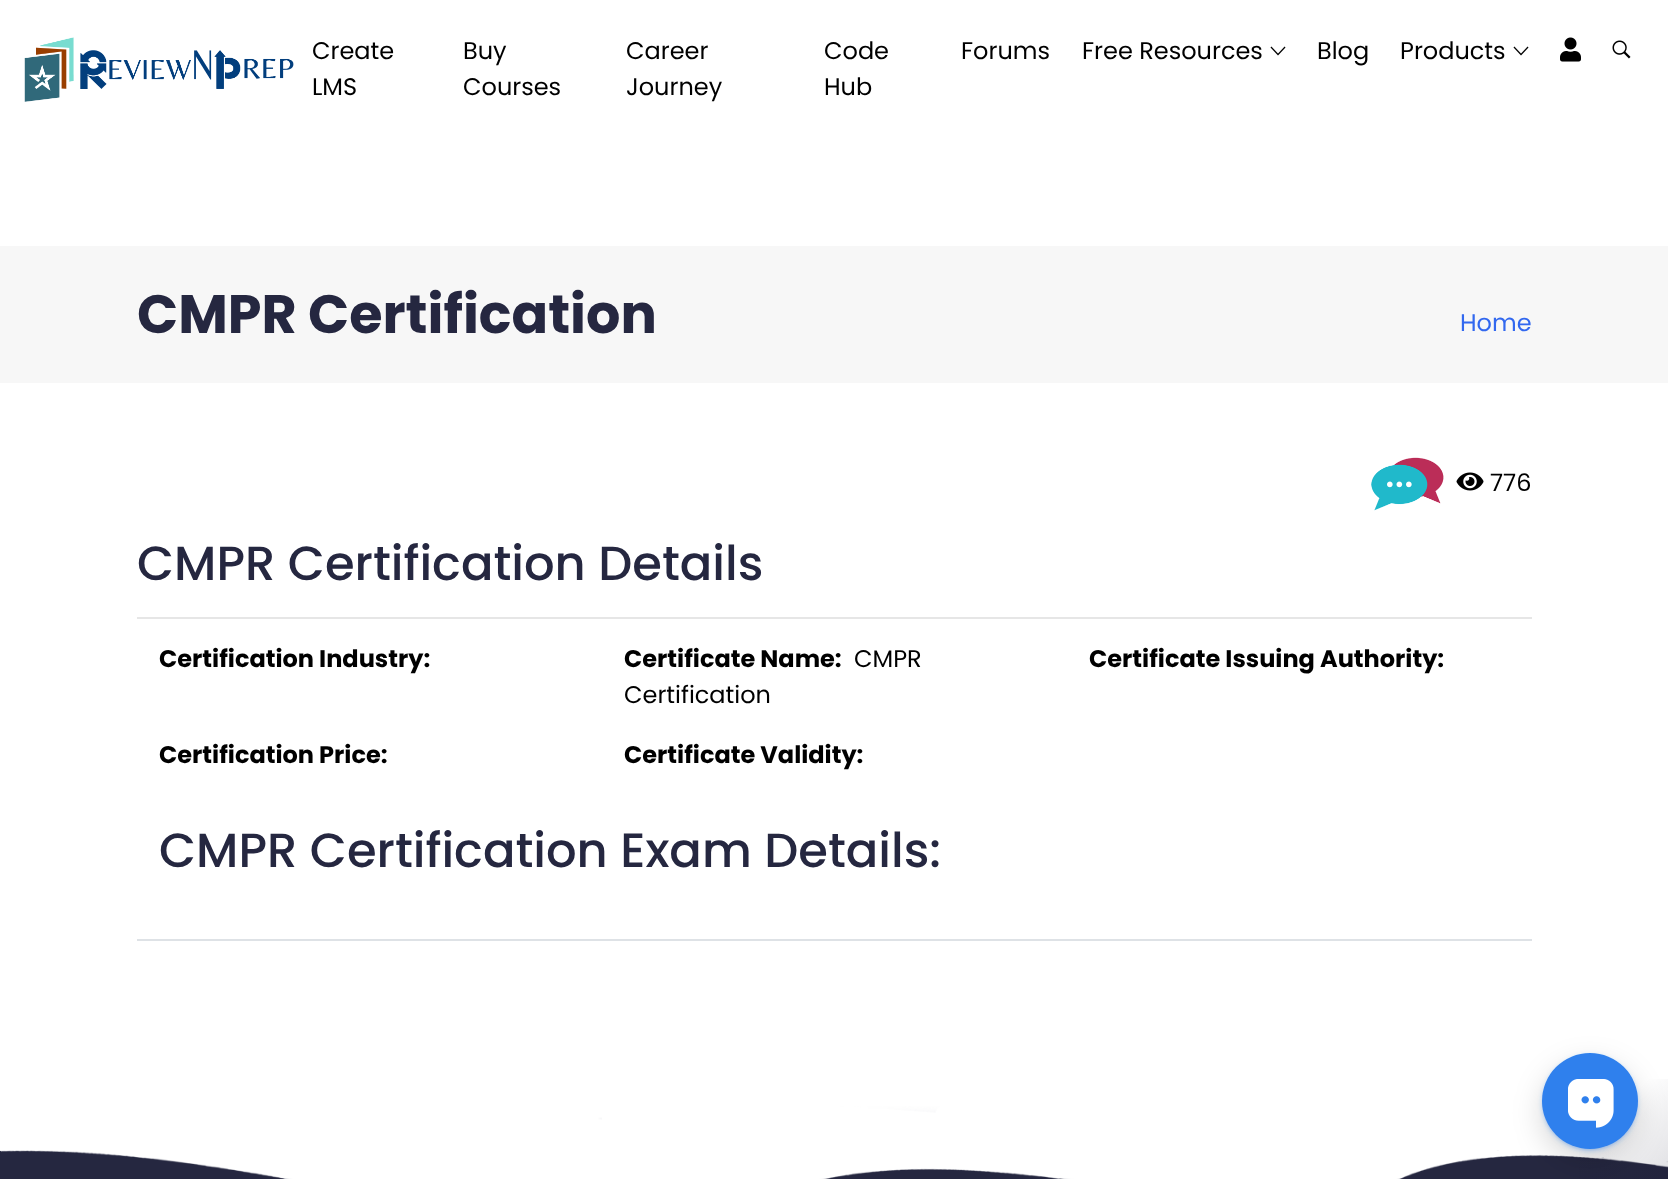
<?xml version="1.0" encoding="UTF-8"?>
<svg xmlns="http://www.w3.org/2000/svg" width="1668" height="1179">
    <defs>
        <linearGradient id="g1" gradientUnits="userSpaceOnUse" x1="1518" y1="1029" x2="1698" y2="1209"><stop offset="0.5" stop-color="#0E0E29" stop-opacity="0"/><stop offset="1" stop-color="#0E0E29" stop-opacity="0.2"/></linearGradient>
        <filter id="blur1" x="-50%" y="-200%" width="200%" height="500%"><feGaussianBlur stdDeviation="15"/></filter>
        <filter id="blur2" x="-50%" y="-200%" width="200%" height="500%"><feGaussianBlur stdDeviation="3"/></filter>
    </defs>
    <rect width="100%" height="100%" fill="#FFFFFF"/>
    <image x="24" y="37" width="270" height="65" href="img_01.png"/>
    <text font-family="Poppins" font-size="24" fill="#000000">
        <tspan x="312" y="59">Create</tspan>
        <tspan x="312" y="95">LMS</tspan>
    </text>
    <text font-family="Poppins" font-size="24" fill="#000000">
        <tspan x="463" y="59">Buy</tspan>
        <tspan x="463" y="95">Courses</tspan>
    </text>
    <text font-family="Poppins" font-size="24" fill="#000000">
        <tspan x="626" y="59">Career</tspan>
        <tspan x="626" y="95">Journey</tspan>
    </text>
    <text font-family="Poppins" font-size="24" fill="#000000">
        <tspan x="824" y="59">Code</tspan>
        <tspan x="824" y="95">Hub</tspan>
    </text>
    <text x="961" y="59" font-family="Poppins" font-size="24" fill="#000000">Forums</text>
    <text x="1082" y="59" font-family="Poppins" font-size="24" fill="#000000">Free Resources</text>
    <image x="1270" y="46" width="16" height="10" href="img_02.png"/>
    <text x="1317" y="59" font-family="Poppins" font-size="24" fill="#000000">Blog</text>
    <text x="1400" y="59" font-family="Poppins" font-size="24" fill="#000000">Products</text>
    <image x="1513" y="46" width="16" height="10" href="img_02.png"/>
    <image x="1560" y="37" width="21" height="25" href="img_03.png"/>
    <image x="1612" y="40" width="19" height="19" href="img_04.png"/>
    <rect x="0" y="246" width="1668" height="137" fill="#F7F7F7"/>
    <text x="137" y="333" font-family="Poppins" font-size="54" font-weight="700" fill="#252740">CMPR Certification</text>
    <text x="1460" y="331" font-family="Poppins" font-size="24" fill="#3268EF">Home</text>
    <image x="1371" y="457" width="73" height="54" href="img_05.png"/>
    <image x="1456" y="472" width="28" height="19" href="img_06.png"/>
    <text x="1490" y="491" font-family="Poppins" font-size="24" fill="#000000">776</text>
    <text x="137" y="580" font-family="Poppins" font-size="48" font-weight="500" fill="#252740">CMPR Certification Details</text>
    <rect x="137" y="617" width="1395" height="2" fill="#E6E6E6"/>
    <text x="159" y="667" font-family="Poppins" font-size="24" font-weight="700" fill="#000000">Certification Industry:</text>
    <text x="624" y="667" font-family="Poppins" font-size="24" font-weight="700" fill="#000000">Certificate Name:</text>
    <text x="854" y="667" font-family="Poppins" font-size="24" fill="#000000">CMPR</text>
    <text x="624" y="703" font-family="Poppins" font-size="24" fill="#000000">Certification</text>
    <text x="1089" y="667" font-family="Poppins" font-size="24" font-weight="700" fill="#000000">Certificate Issuing Authority:</text>
    <text x="159" y="763" font-family="Poppins" font-size="24" font-weight="700" fill="#000000">Certification Price:</text>
    <text x="624" y="763" font-family="Poppins" font-size="24" font-weight="700" fill="#000000">Certificate Validity:</text>
    <text x="159" y="867" font-family="Poppins" font-size="48" font-weight="500" fill="#252740">CMPR Certification Exam Details:</text>
    <rect x="137" y="939" width="1395" height="2" fill="#DEE2E6"/>
    <rect x="0" y="1106" width="1668" height="73" fill="#252740"/>
    <image x="0" y="1106" width="1668" height="73" href="img_08.png"/>
    <rect x="1579" y="1079" width="89" height="100" fill="url(#g1)"/>
    <rect x="1542" y="1065" width="96" height="96" rx="48" fill="#000000" fill-opacity="0.16" filter="url(#blur1)"/>
    <rect x="1545" y="1058" width="90" height="90" rx="45" fill="#2F80ED" filter="url(#blur2)"/>
    <circle cx="1590" cy="1101" r="48" fill="#2F80ED"/>
    <image x="1568" y="1079" width="46" height="49" href="img_07.png"/>
</svg>
